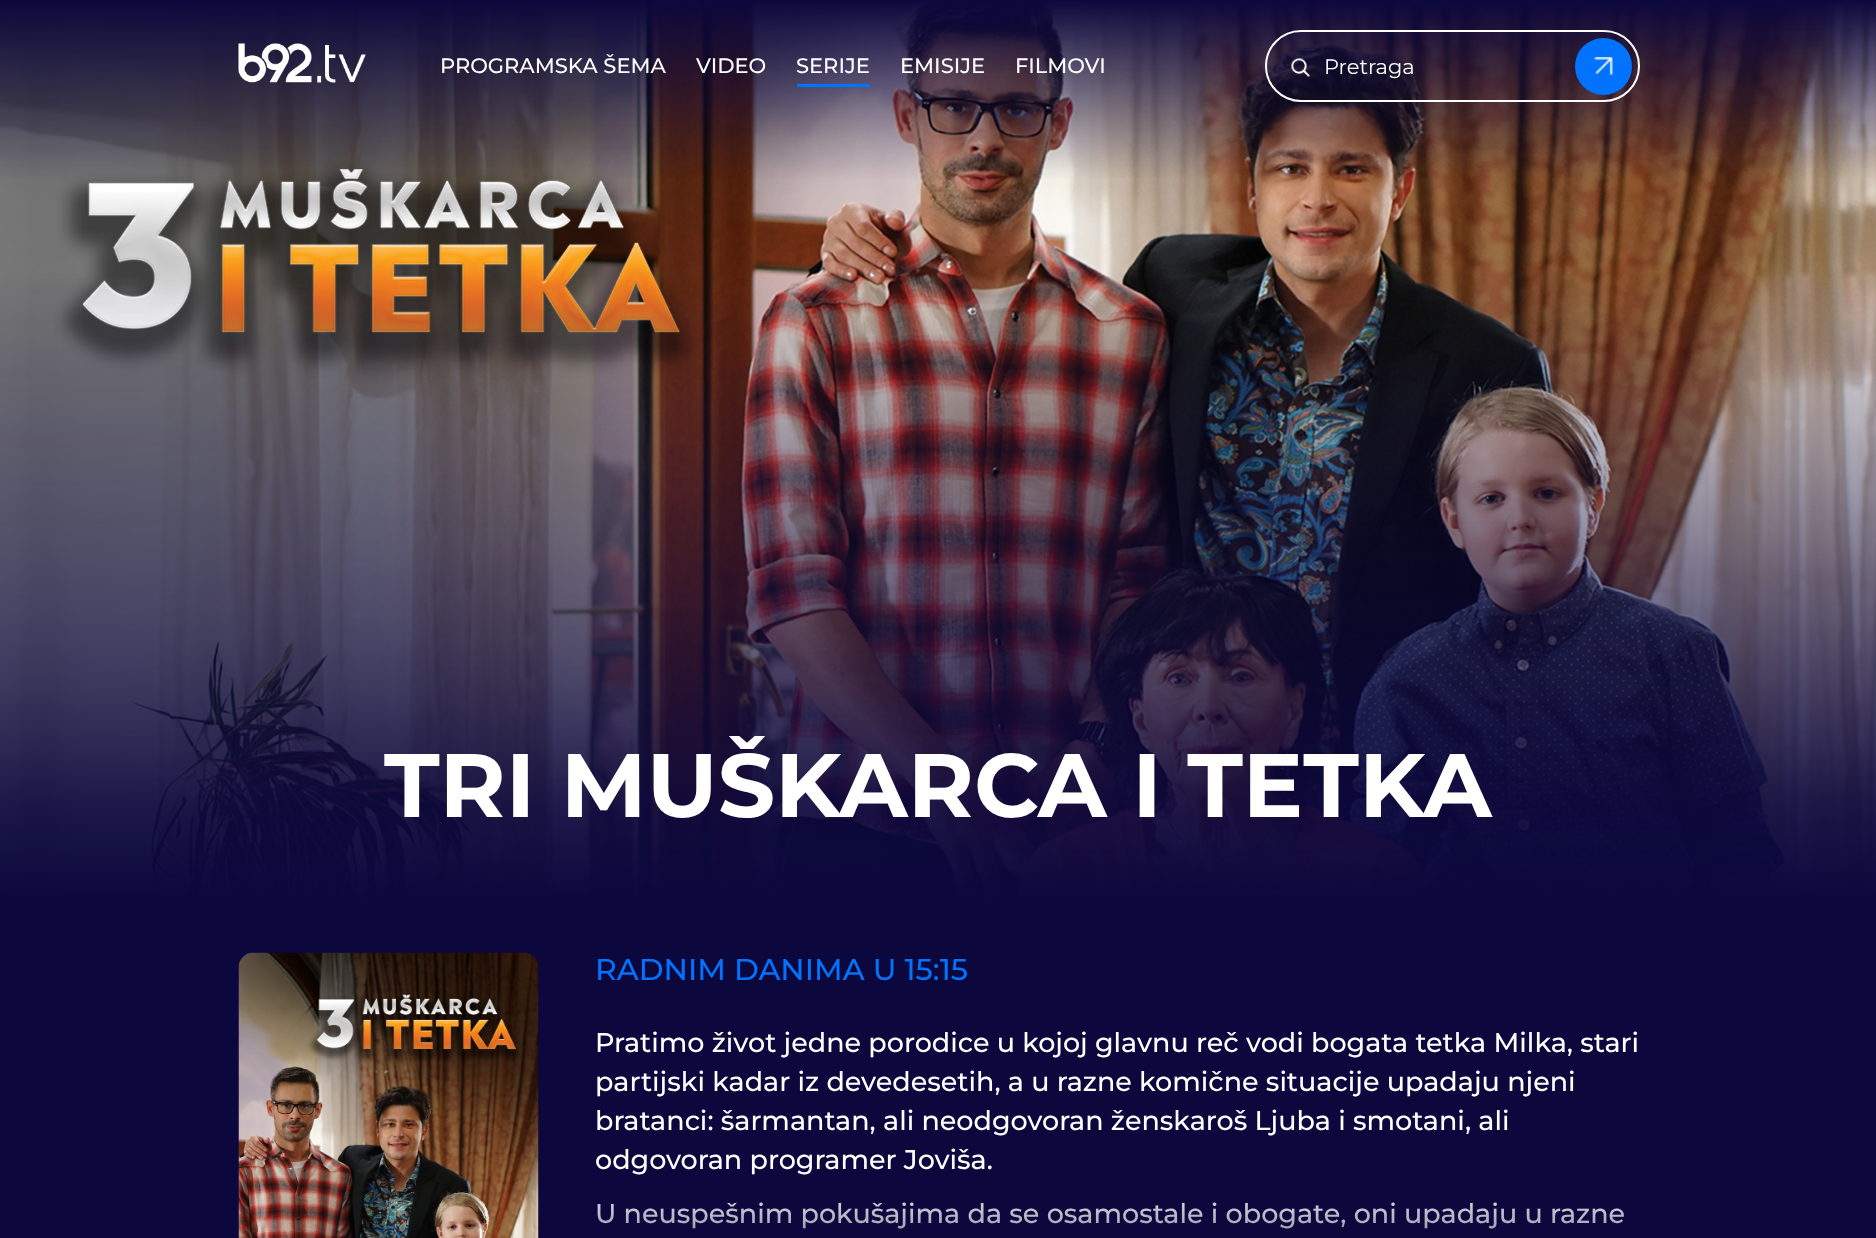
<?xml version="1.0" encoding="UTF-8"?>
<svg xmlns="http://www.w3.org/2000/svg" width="1876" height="1238">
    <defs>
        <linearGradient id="g1" gradientUnits="userSpaceOnUse" x1="1118" y1="1173" x2="1118" y2="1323"><stop offset="0" stop-color="#0C083D" stop-opacity="0"/><stop offset="1" stop-color="#0C083D"/></linearGradient>
    </defs>
    <rect width="100%" height="100%" fill="#0C083D"/>
    <image x="0" y="0" width="1876" height="900" href="img_04.png"/>
    <image x="238" y="43" width="128" height="40" href="img_01.png"/>
    <text x="440" y="73" font-family="Montserrat" font-size="21" font-weight="500" fill="#FFFFFF">PROGRAMSKA ŠEMA</text>
    <text x="696" y="73" font-family="Montserrat" font-size="21" font-weight="500" fill="#FFFFFF">VIDEO</text>
    <text x="796" y="73" font-family="Montserrat" font-size="21" font-weight="500" fill="#FFFFFF">SERIJE</text>
    <rect x="797" y="84" width="73" height="3" fill="#0173FF"/>
    <text x="900" y="73" font-family="Montserrat" font-size="21" font-weight="500" fill="#FFFFFF">EMISIJE</text>
    <text x="1015" y="73" font-family="Montserrat" font-size="21" font-weight="500" fill="#FFFFFF">FILMOVI</text>
    <rect x="1266" y="31" width="373" height="70" rx="35" fill="none" stroke="#FFFFFF" stroke-width="2"/>
    <image x="1291" y="58" width="19" height="19" href="img_02.png"/>
    <text x="1324" y="74" font-family="Montserrat" font-size="21" fill="#FFFFFF">Pretraga</text>
    <circle cx="1603.5" cy="66.5" r="28.5" fill="#0173FF"/>
    <image x="1594" y="57" width="19" height="18" href="img_03.png"/>
    <text x="384" y="817" font-family="Montserrat" font-size="90" font-weight="700" fill="#FFFFFF">TRI MUŠKARCA I TETKA</text>
    <image x="238" y="952" width="301" height="286" href="img_05.png"/>
    <text x="595" y="980" font-family="Montserrat" font-size="30" font-weight="500" fill="#0173FF">RADNIM DANIMA U 15:15</text>
    <text font-family="Montserrat" font-size="27" font-weight="500" fill="#FFFFFF">
        <tspan x="595" y="1052">Pratimo život jedne porodice u kojoj glavnu reč vodi bogata tetka Milka, stari</tspan>
        <tspan x="595" y="1091">partijski kadar iz devedesetih, a u razne komične situacije upadaju njeni</tspan>
        <tspan x="595" y="1130">bratanci: šarmantan, ali neodgovoran ženskaroš Ljuba i smotani, ali</tspan>
        <tspan x="595" y="1169">odgovoran programer Joviša.</tspan>
    </text>
    <text x="595" y="1223" font-family="Montserrat" font-size="27" font-weight="500" fill="#FFFFFF">U neuspešnim pokušajima da se osamostale i obogate, oni upadaju u razne</text>
    <rect x="597" y="1202" width="1027" height="27" fill="url(#g1)"/>
</svg>
